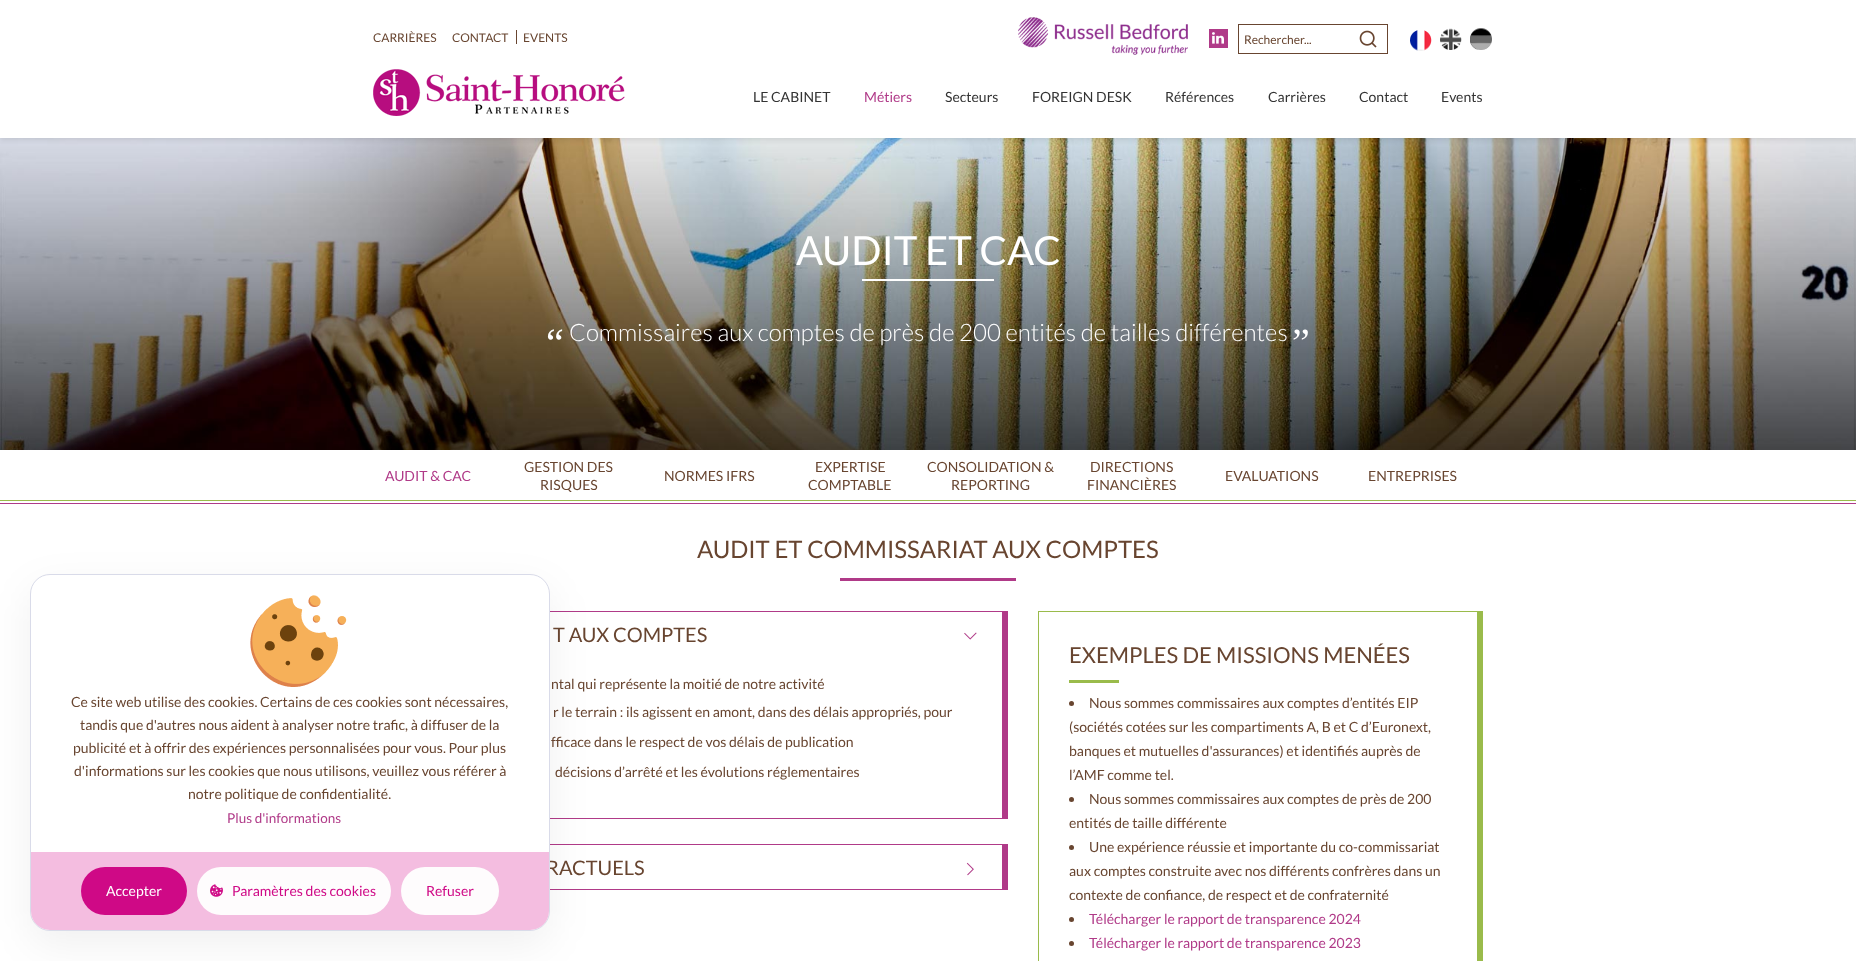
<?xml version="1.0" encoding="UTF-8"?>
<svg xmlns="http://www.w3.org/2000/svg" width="1856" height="961">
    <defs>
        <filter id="blur1" x="-50%" y="-200%" width="200%" height="500%"><feGaussianBlur stdDeviation="2.5"/></filter>
        <filter id="blur2" x="-50%" y="-200%" width="200%" height="500%"><feGaussianBlur stdDeviation="21"/></filter>
    </defs>
    <rect width="100%" height="100%" fill="#FFFFFF"/>
    <image x="0" y="138" width="1856" height="312" href="img_08.png"/>
    <rect x="0" y="2" width="1856" height="138" fill="#000000" fill-opacity="0.1" filter="url(#blur1)"/>
    <rect x="0" y="0" width="1856" height="138" fill="#FFFFFF"/>
    <text x="373" y="42" font-family="Lato" font-size="12" fill="#684530">CARRIÈRES</text>
    <text x="452" y="42" font-family="Lato" font-size="12" fill="#684530">CONTACT</text>
    <rect x="516" y="30" width="1" height="14" fill="#684530"/>
    <text x="523" y="42" font-family="Lato" font-size="12" fill="#684530">EVENTS</text>
    <image x="1018" y="17" width="170" height="38" href="img_01.png"/>
    <rect x="1209" y="29" width="19" height="19" fill="#B03A88"/>
    <image x="1212" y="32" width="12" height="12" href="img_02.png"/>
    <rect x="1238.5" y="24.5" width="149" height="29" fill="none" stroke="#684530"/>
    <text x="1244" y="44" font-family="Lato" font-size="12" fill="#684530">Rechercher...</text>
    <image x="1359" y="30" width="18" height="18" href="img_03.png"/>
    <image x="1410" y="30" width="22" height="21" href="img_04.png"/>
    <image x="1440" y="28" width="22" height="22" href="img_05.png"/>
    <image x="1470" y="28" width="22" height="22" href="img_06.png"/>
    <image x="373" y="69" width="252" height="47" href="img_07.png"/>
    <text x="753" y="102" font-family="Lato" font-size="14" fill="#333333">LE CABINET</text>
    <text x="864" y="102" font-family="Lato" font-size="14" fill="#B03A88">Métiers</text>
    <text x="945" y="102" font-family="Lato" font-size="14" fill="#333333">Secteurs</text>
    <text x="1032" y="102" font-family="Lato" font-size="14" fill="#333333">FOREIGN DESK</text>
    <text x="1165" y="102" font-family="Lato" font-size="14" fill="#333333">Références</text>
    <text x="1268" y="102" font-family="Lato" font-size="14" fill="#333333">Carrières</text>
    <text x="1359" y="102" font-family="Lato" font-size="14" fill="#333333">Contact</text>
    <text x="1441" y="102" font-family="Lato" font-size="14" fill="#333333">Events</text>
    <text x="796" y="265" font-family="Lato" font-size="40" fill="#FFFFFF">AUDIT ET CAC</text>
    <rect x="862" y="279" width="132" height="2" fill="#FFFFFF"/>
    <text x="546" y="356" font-family="Liberation Serif" font-size="40" fill="#FFFFFF">“</text>
    <text x="569" y="341" font-family="Lato" font-size="24" font-weight="300" fill="#FFFFFF">Commissaires aux comptes de près de 200 entités de tailles différentes</text>
    <text x="1292" y="356" font-family="Liberation Serif" font-size="40" fill="#FFFFFF">”</text>
    <rect x="550" y="611" width="458" height="1" fill="#B03A88"/>
    <rect x="1002" y="611" width="6" height="208" fill="#B03A88"/>
    <rect x="550" y="818" width="458" height="1" fill="#B03A88"/>
    <rect x="550" y="844" width="458" height="1" fill="#B03A88"/>
    <rect x="1002" y="844" width="6" height="46" fill="#B03A88"/>
    <rect x="550" y="889" width="458" height="1" fill="#B03A88"/>
    <rect x="30" y="588" width="520" height="357" rx="20" fill="#080F34" fill-opacity="0.06" filter="url(#blur2)"/>
    <text x="546" y="875" font-family="Lato" font-size="20" fill="#684530">RACTUELS</text>
    <rect x="30.5" y="574.5" width="519" height="356" rx="19.5" fill="#FFFFFF" stroke="#D9DBE9"/>
    <image x="250" y="595" width="97" height="92" href="img_09.png"/>
    <text x="71" y="707" font-family="Lato" font-size="14" fill="#684530">Ce site web utilise des cookies. Certains de ces cookies sont nécessaires,</text>
    <text x="80" y="730" font-family="Lato" font-size="14" fill="#684530">tandis que d'autres nous aident à analyser notre trafic, à diffuser de la</text>
    <text x="73" y="753" font-family="Lato" font-size="14" fill="#684530">publicité et à offrir des expériences personnalisées pour vous. Pour plus</text>
    <text x="74" y="776" font-family="Lato" font-size="14" fill="#684530">d'informations sur les cookies que nous utilisons, veuillez vous référer à</text>
    <text x="188" y="799" font-family="Lato" font-size="14" fill="#684530">notre politique de confidentialité.</text>
    <text x="227" y="823" font-family="Lato" font-size="13.5" fill="#B03A88">Plus d'informations</text>
    <path d="M 31 852 H 549 V 911 C 549 921.5 540.5 930 530 930 H 50 C 39.5 930 31 921.5 31 911 Z" fill="#F4BDE0"/>
    <rect x="81" y="867" width="106" height="48" rx="24" fill="#CF0986"/>
    <text x="106" y="896" font-family="Lato" font-size="14" fill="#FFFFFF">Accepter</text>
    <rect x="197" y="867" width="194" height="48" rx="24" fill="#FEFCFD"/>
    <image x="210" y="884" width="13" height="13" href="img_10.png"/>
    <text x="232" y="896" font-family="Lato" font-size="14" fill="#CF0986">Paramètres des cookies</text>
    <rect x="401" y="867" width="98" height="48" rx="24" fill="#FEFCFD"/>
    <text x="426" y="896" font-family="Lato" font-size="14" fill="#CF0986">Refuser</text>
    <rect x="0" y="500" width="1856" height="1" fill="#9ABB4B"/>
    <text x="385" y="481" font-family="Lato" font-size="14" fill="#B03A88">AUDIT &amp; CAC</text>
    <text x="524" y="472" font-family="Lato" font-size="14" fill="#684530">GESTION DES</text>
    <text x="540" y="490" font-family="Lato" font-size="14" fill="#684530">RISQUES</text>
    <text x="664" y="481" font-family="Lato" font-size="14" fill="#684530">NORMES IFRS</text>
    <text x="815" y="472" font-family="Lato" font-size="14" fill="#684530">EXPERTISE</text>
    <text x="808" y="490" font-family="Lato" font-size="14" fill="#684530">COMPTABLE</text>
    <text x="927" y="472" font-family="Lato" font-size="14" fill="#684530">CONSOLIDATION &amp;</text>
    <text x="951" y="490" font-family="Lato" font-size="14" fill="#684530">REPORTING</text>
    <text x="1090" y="472" font-family="Lato" font-size="14" fill="#684530">DIRECTIONS</text>
    <text x="1087" y="490" font-family="Lato" font-size="14" fill="#684530">FINANCIÈRES</text>
    <text x="1225" y="481" font-family="Lato" font-size="14" fill="#684530">EVALUATIONS</text>
    <text x="1368" y="481" font-family="Lato" font-size="14" fill="#684530">ENTREPRISES</text>
    <rect x="0" y="503" width="1856" height="1" fill="#B03A88"/>
    <text x="697" y="558" font-family="Lato" font-size="24" fill="#684530">AUDIT ET COMMISSARIAT AUX COMPTES</text>
    <rect x="840" y="578" width="176" height="3" fill="#B03A88"/>
    <text x="553" y="642" font-family="Lato" font-size="20" fill="#684530">T AUX COMPTES</text>
    <image x="964" y="632" width="13" height="8" href="img_11.png"/>
    <text x="551" y="689" font-family="Lato" font-size="14" fill="#684530">ntal qui représente la moitié de notre activité</text>
    <text x="553" y="717" font-family="Lato" font-size="14" fill="#684530">r le terrain : ils agissent en amont, dans des délais appropriés, pour</text>
    <text x="551" y="747" font-family="Lato" font-size="14" fill="#684530">fficace dans le respect de vos délais de publication</text>
    <text x="555" y="777" font-family="Lato" font-size="14" fill="#684530">décisions d’arrêté et les évolutions réglementaires</text>
    <image x="966" y="862" width="8" height="14" href="img_12.png"/>
    <rect x="1038" y="611" width="445" height="1" fill="#9ABB4B"/>
    <rect x="1477" y="611" width="6" height="350" fill="#9ABB4B"/>
    <rect x="1038" y="611" width="1" height="350" fill="#9ABB4B"/>
    <text x="1069" y="663" font-family="Lato" font-size="22" fill="#684530">EXEMPLES DE MISSIONS MENÉES</text>
    <rect x="1069" y="680" width="50" height="3" fill="#9ABB4B"/>
    <circle cx="1071.5" cy="703.5" r="2.5" fill="#684530"/>
    <text x="1089" y="708" font-family="Lato" font-size="14" fill="#684530">Nous sommes commissaires aux comptes d’entités EIP</text>
    <text font-family="Lato" font-size="14" fill="#684530">
        <tspan x="1069" y="732">(sociétés cotées sur les compartiments A, B et C d’Euronext,</tspan>
        <tspan x="1069" y="756">banques et mutuelles d'assurances) et identifiés auprès de</tspan>
        <tspan x="1069" y="780">l’AMF comme tel.</tspan>
    </text>
    <circle cx="1071.5" cy="799.5" r="2.5" fill="#684530"/>
    <text x="1089" y="804" font-family="Lato" font-size="14" fill="#684530">Nous sommes commissaires aux comptes de près de 200</text>
    <text x="1069" y="828" font-family="Lato" font-size="14" fill="#684530">entités de taille différente</text>
    <circle cx="1071.5" cy="847.5" r="2.5" fill="#684530"/>
    <text x="1089" y="852" font-family="Lato" font-size="14" fill="#684530">Une expérience réussie et importante du co-commissariat</text>
    <text font-family="Lato" font-size="14" fill="#684530">
        <tspan x="1069" y="876">aux comptes construite avec nos différents confrères dans un</tspan>
        <tspan x="1069" y="900">contexte de confiance, de respect et de confraternité</tspan>
    </text>
    <circle cx="1071.5" cy="919.5" r="2.5" fill="#684530"/>
    <text x="1089" y="924" font-family="Lato" font-size="14" fill="#B03A88">Télécharger le rapport de transparence 2024</text>
    <circle cx="1071.5" cy="943.5" r="2.5" fill="#684530"/>
    <text x="1089" y="948" font-family="Lato" font-size="14" fill="#B03A88">Télécharger le rapport de transparence 2023</text>
</svg>
